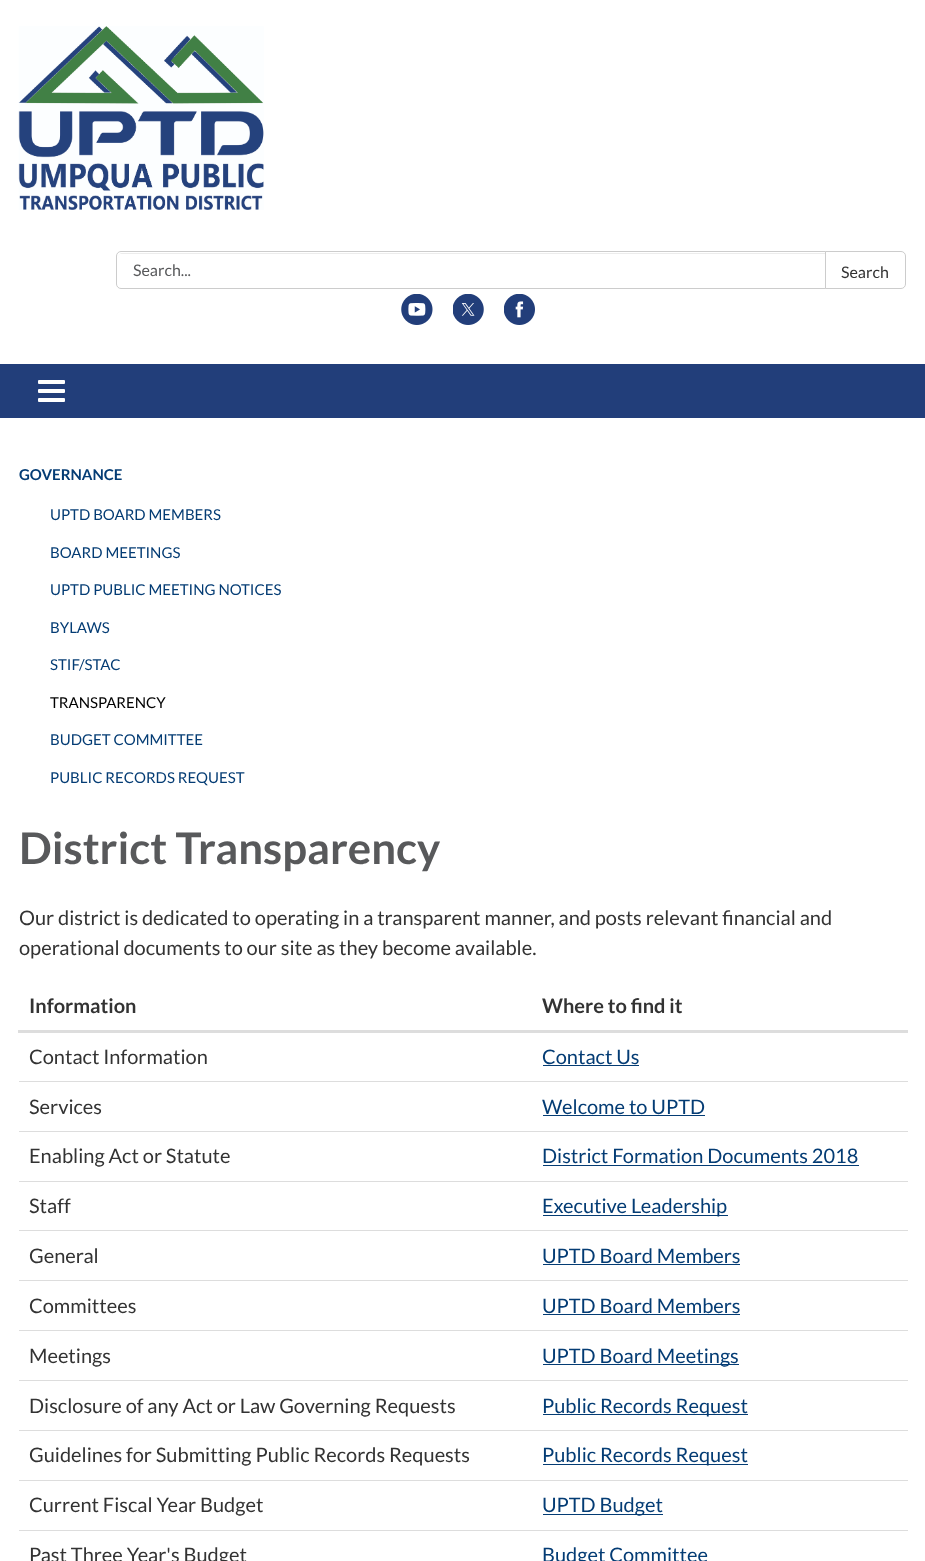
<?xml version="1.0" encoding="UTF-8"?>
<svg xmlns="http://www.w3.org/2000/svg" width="925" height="1561">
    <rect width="100%" height="100%" fill="#FFFFFF"/>
    <image x="18" y="26" width="246" height="184" href="img_01.png"/>
    <path d="M 121 254 H 825 V 253 H 122 C 120 253 118 255 118 257 V 258 C 118 255 119 254 121 254 Z" fill="#ECECEC"/>
    <path d="M 121 251.5 H 825.5 V 288.5 H 121 C 118.5 288.5 116.5 286.5 116.5 284 V 256 C 116.5 253.5 118.5 251.5 121 251.5 Z" fill="none" stroke="#CCCCCC"/>
    <text x="133" y="276" font-family="Lato" font-size="16" fill="#58595B">Search...</text>
    <path d="M 825.5 251.5 H 901 C 903.5 251.5 905.5 253.5 905.5 256 V 284 C 905.5 286.5 903.5 288.5 901 288.5 H 825.5 Z" fill="#FFFFFF" stroke="#CCCCCC"/>
    <text x="841" y="278" font-family="Lato" font-size="16" fill="#333333">Search</text>
    <image x="401" y="294" width="32" height="31" href="img_02.png"/>
    <image x="453" y="294" width="31" height="31" href="img_03.png"/>
    <image x="504" y="294" width="31" height="31" href="img_04.png"/>
    <rect x="0" y="364" width="925" height="54" fill="#223E7A"/>
    <rect x="38" y="380" width="27" height="4" rx="1" fill="#FFFFFF"/>
    <rect x="38" y="389" width="27" height="4" rx="1" fill="#FFFFFF"/>
    <rect x="38" y="398" width="27" height="4" rx="1" fill="#FFFFFF"/>
    <text x="19" y="480" font-family="Lato" font-size="15" font-weight="700" fill="#043C74">GOVERNANCE</text>
    <text x="50" y="520" font-family="Lato" font-size="15" fill="#043C74">UPTD BOARD MEMBERS</text>
    <text x="50" y="558" font-family="Lato" font-size="15" fill="#043C74">BOARD MEETINGS</text>
    <text x="50" y="595" font-family="Lato" font-size="15" fill="#043C74">UPTD PUBLIC MEETING NOTICES</text>
    <text x="50" y="633" font-family="Lato" font-size="15" fill="#043C74">BYLAWS</text>
    <text x="50" y="670" font-family="Lato" font-size="15" fill="#043C74">STIF/STAC</text>
    <text x="50" y="708" font-family="Lato" font-size="15" fill="#000000">TRANSPARENCY</text>
    <text x="50" y="745" font-family="Lato" font-size="15" fill="#043C74">BUDGET COMMITTEE</text>
    <text x="50" y="783" font-family="Lato" font-size="15" fill="#043C74">PUBLIC RECORDS REQUEST</text>
    <text x="19" y="864" font-family="Lato" font-size="43.75" font-weight="700" fill="#58595B">District Transparency</text>
    <text font-family="Lato" font-size="20" fill="#333333">
        <tspan x="19" y="925">Our district is dedicated to operating in a transparent manner, and posts relevant financial and</tspan>
        <tspan x="19" y="955">operational documents to our site as they become available.</tspan>
    </text>
    <text x="29" y="1013" font-family="Lato" font-size="20" font-weight="700" fill="#333333">Information</text>
    <rect x="18" y="1030" width="890" height="3" fill="#DDDDDD"/>
    <text x="542" y="1013" font-family="Lato" font-size="20" font-weight="700" fill="#333333">Where to find it</text>
    <text x="29" y="1064" font-family="Lato" font-size="20" fill="#333333">Contact Information</text>
    <text x="542" y="1064" font-family="Lato" font-size="20" fill="#043C74">Contact Us</text>
    <rect x="543" y="1065" width="96" height="1" fill="#043C74"/>
    <text x="29" y="1114" font-family="Lato" font-size="20" fill="#333333">Services</text>
    <rect x="19" y="1081" width="889" height="1" fill="#DDDDDD"/>
    <text x="542" y="1114" font-family="Lato" font-size="20" fill="#043C74">Welcome to UPTD</text>
    <rect x="543" y="1115" width="162" height="1" fill="#043C74"/>
    <text x="29" y="1163" font-family="Lato" font-size="20" fill="#333333">Enabling Act or Statute</text>
    <rect x="19" y="1131" width="889" height="1" fill="#DDDDDD"/>
    <text x="542" y="1163" font-family="Lato" font-size="20" fill="#043C74">District Formation Documents 2018</text>
    <rect x="543" y="1165" width="316" height="1" fill="#043C74"/>
    <text x="29" y="1213" font-family="Lato" font-size="20" fill="#333333">Staff</text>
    <rect x="19" y="1181" width="889" height="1" fill="#DDDDDD"/>
    <rect x="543" y="1215" width="185" height="1" fill="#043C74"/>
    <text x="542" y="1213" font-family="Lato" font-size="20" fill="#043C74">Executive Leadership</text>
    <text x="29" y="1263" font-family="Lato" font-size="20" fill="#333333">General</text>
    <rect x="19" y="1230" width="889" height="1" fill="#DDDDDD"/>
    <text x="542" y="1263" font-family="Lato" font-size="20" fill="#043C74">UPTD Board Members</text>
    <rect x="543" y="1264" width="197" height="1" fill="#043C74"/>
    <text x="29" y="1313" font-family="Lato" font-size="20" fill="#333333">Committees</text>
    <rect x="19" y="1280" width="889" height="1" fill="#DDDDDD"/>
    <text x="542" y="1313" font-family="Lato" font-size="20" fill="#043C74">UPTD Board Members</text>
    <rect x="543" y="1314" width="197" height="1" fill="#043C74"/>
    <text x="29" y="1363" font-family="Lato" font-size="20" fill="#333333">Meetings</text>
    <rect x="19" y="1330" width="889" height="1" fill="#DDDDDD"/>
    <rect x="543" y="1364" width="196" height="1" fill="#043C74"/>
    <text x="542" y="1363" font-family="Lato" font-size="20" fill="#043C74">UPTD Board Meetings</text>
    <text x="29" y="1413" font-family="Lato" font-size="20" fill="#333333">Disclosure of any Act or Law Governing Requests</text>
    <rect x="19" y="1380" width="889" height="1" fill="#DDDDDD"/>
    <rect x="543" y="1414" width="205" height="1" fill="#043C74"/>
    <text x="542" y="1413" font-family="Lato" font-size="20" fill="#043C74">Public Records Request</text>
    <text x="29" y="1462" font-family="Lato" font-size="20" fill="#333333">Guidelines for Submitting Public Records Requests</text>
    <rect x="19" y="1430" width="889" height="1" fill="#DDDDDD"/>
    <rect x="543" y="1464" width="205" height="1" fill="#043C74"/>
    <text x="542" y="1462" font-family="Lato" font-size="20" fill="#043C74">Public Records Request</text>
    <text x="29" y="1512" font-family="Lato" font-size="20" fill="#333333">Current Fiscal Year Budget</text>
    <rect x="19" y="1480" width="889" height="1" fill="#DDDDDD"/>
    <rect x="543" y="1514" width="120" height="1" fill="#043C74"/>
    <text x="542" y="1512" font-family="Lato" font-size="20" fill="#043C74">UPTD Budget</text>
    <text x="29" y="1562" font-family="Lato" font-size="20" fill="#333333">Past Three Year's Budget</text>
    <rect x="19" y="1530" width="889" height="1" fill="#DDDDDD"/>
    <text x="542" y="1562" font-family="Lato" font-size="20" fill="#043C74">Budget Committee</text>
</svg>
